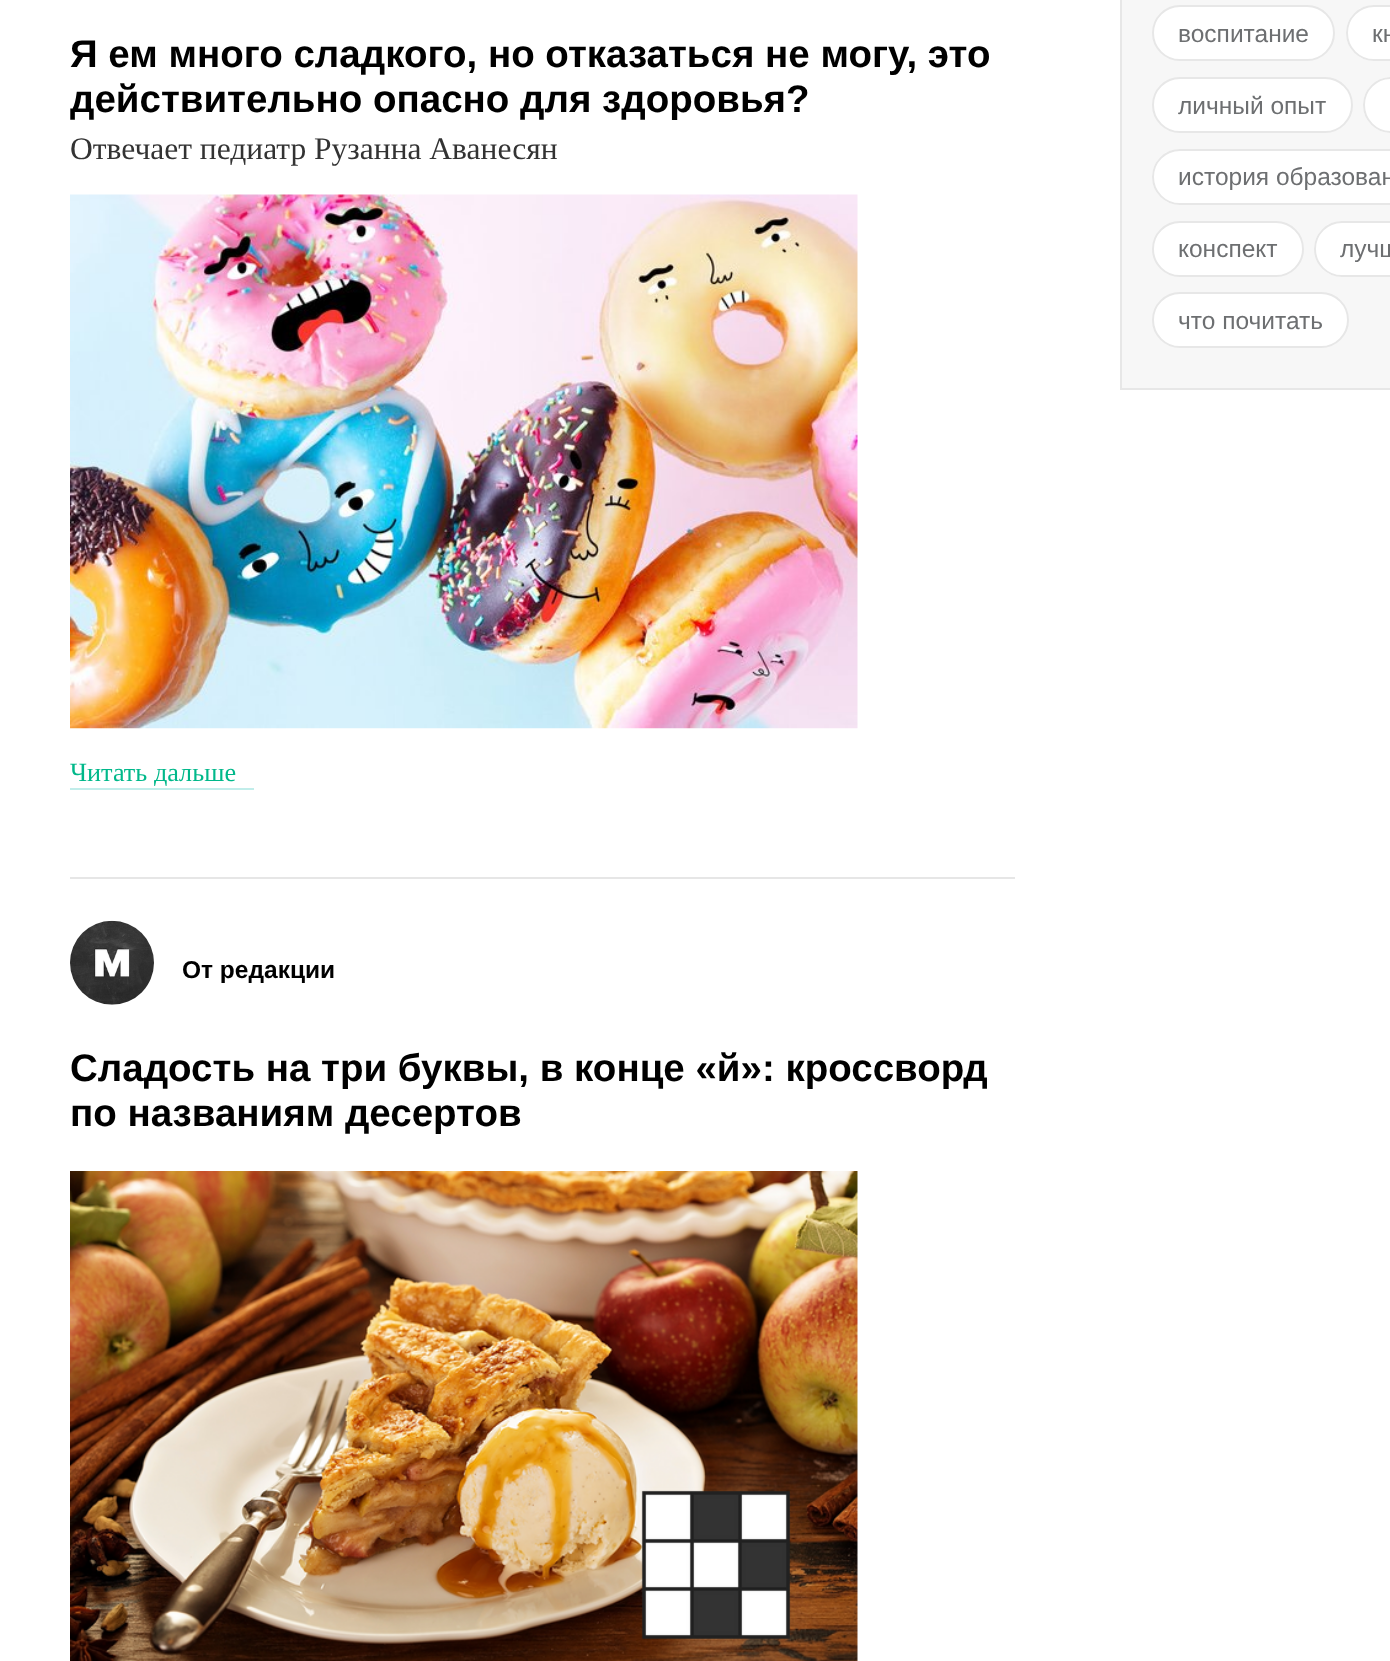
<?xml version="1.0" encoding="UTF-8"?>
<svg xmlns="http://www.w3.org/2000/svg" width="1390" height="1661">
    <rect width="100%" height="100%" fill="#FFFFFF"/>
    <rect x="70" y="877" width="945" height="2" fill="#E6E6E6"/>
    <text font-family="Liberation Sans" font-size="38.5" font-weight="700" fill="#000000">
        <tspan x="70" y="67">Я ем много сладкого, но отказаться не могу, это</tspan>
        <tspan x="70" y="112">действительно опасно для здоровья?</tspan>
    </text>
    <text x="70" y="159" font-family="Liberation Serif" font-size="31.5" fill="#333333">Отвечает педиатр Рузанна Аванесян</text>
    <image x="70" y="194" width="788" height="535" href="img_01.png"/>
    <rect x="70" y="788" width="184" height="2" fill="#C1EDEA"/>
    <text x="70" y="781" font-family="Liberation Serif" font-size="26.25" fill="#00B88A">Читать дальше</text>
    <image x="70" y="920" width="84" height="85" href="img_02.png"/>
    <text x="182" y="978" font-family="Liberation Sans" font-size="24.5" font-weight="700" fill="#000000">От редакции</text>
    <text font-family="Liberation Sans" font-size="38.5" font-weight="700" fill="#000000">
        <tspan x="70" y="1081">Сладость на три буквы, в конце «й»: кроссворд</tspan>
        <tspan x="70" y="1126">по названиям десертов</tspan>
    </text>
    <image x="70" y="1171" width="788" height="490" href="img_03.png"/>
    <rect x="1121" y="-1" width="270" height="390" fill="#F7F7F7" stroke="#E7E7E7" stroke-width="2"/>
    <rect x="1153" y="6" width="181" height="54" rx="27" fill="#FFFFFF" stroke="#E7E7E7" stroke-width="2"/>
    <text x="1178" y="42" font-family="Liberation Sans" font-size="24.5" fill="#6D6F71">воспитание</text>
    <path d="M 1374 5 H 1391 V 61 H 1374 C 1358.5 61 1346 48.5 1346 33 C 1346 17.5 1358.5 5 1374 5 Z" fill="#FFFFFF"/>
    <rect x="1347" y="6" width="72" height="54" rx="27" fill="none" stroke="#E7E7E7" stroke-width="2"/>
    <text x="1372" y="42" font-family="Liberation Sans" font-size="24.5" fill="#6D6F71">кн</text>
    <rect x="1153" y="78" width="199" height="54" rx="27" fill="#FFFFFF" stroke="#E7E7E7" stroke-width="2"/>
    <text x="1178" y="114" font-family="Liberation Sans" font-size="24.5" fill="#6D6F71">личный опыт</text>
    <path d="M 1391 77 V 133 C 1375.5 133 1363 120.5 1363 105 C 1363 89.5 1375.5 77 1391 77 Z" fill="#FFFFFF"/>
    <rect x="1364" y="78" width="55" height="54" rx="27" fill="none" stroke="#E7E7E7" stroke-width="2"/>
    <path d="M 1180 149 H 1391 V 205 H 1180 C 1164.5 205 1152 192.5 1152 177 C 1152 161.5 1164.5 149 1180 149 Z" fill="#FFFFFF"/>
    <rect x="1153" y="150" width="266" height="54" rx="27" fill="none" stroke="#E7E7E7" stroke-width="2"/>
    <text x="1178" y="185" font-family="Liberation Sans" font-size="24.5" fill="#6D6F71">история образован</text>
    <rect x="1153" y="222" width="150" height="54" rx="27" fill="#FFFFFF" stroke="#E7E7E7" stroke-width="2"/>
    <text x="1178" y="257" font-family="Liberation Sans" font-size="24.5" fill="#6D6F71">конспект</text>
    <path d="M 1342 221 H 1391 V 277 H 1342 C 1326.5 277 1314 264.5 1314 249 C 1314 233.5 1326.5 221 1342 221 Z" fill="#FFFFFF"/>
    <rect x="1315" y="222" width="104" height="54" rx="27" fill="none" stroke="#E7E7E7" stroke-width="2"/>
    <text x="1340" y="257" font-family="Liberation Sans" font-size="24.5" fill="#6D6F71">лучш</text>
    <rect x="1153" y="293" width="195" height="54" rx="27" fill="#FFFFFF" stroke="#E7E7E7" stroke-width="2"/>
    <text x="1178" y="329" font-family="Liberation Sans" font-size="24.5" fill="#6D6F71">что почитать</text>
</svg>
